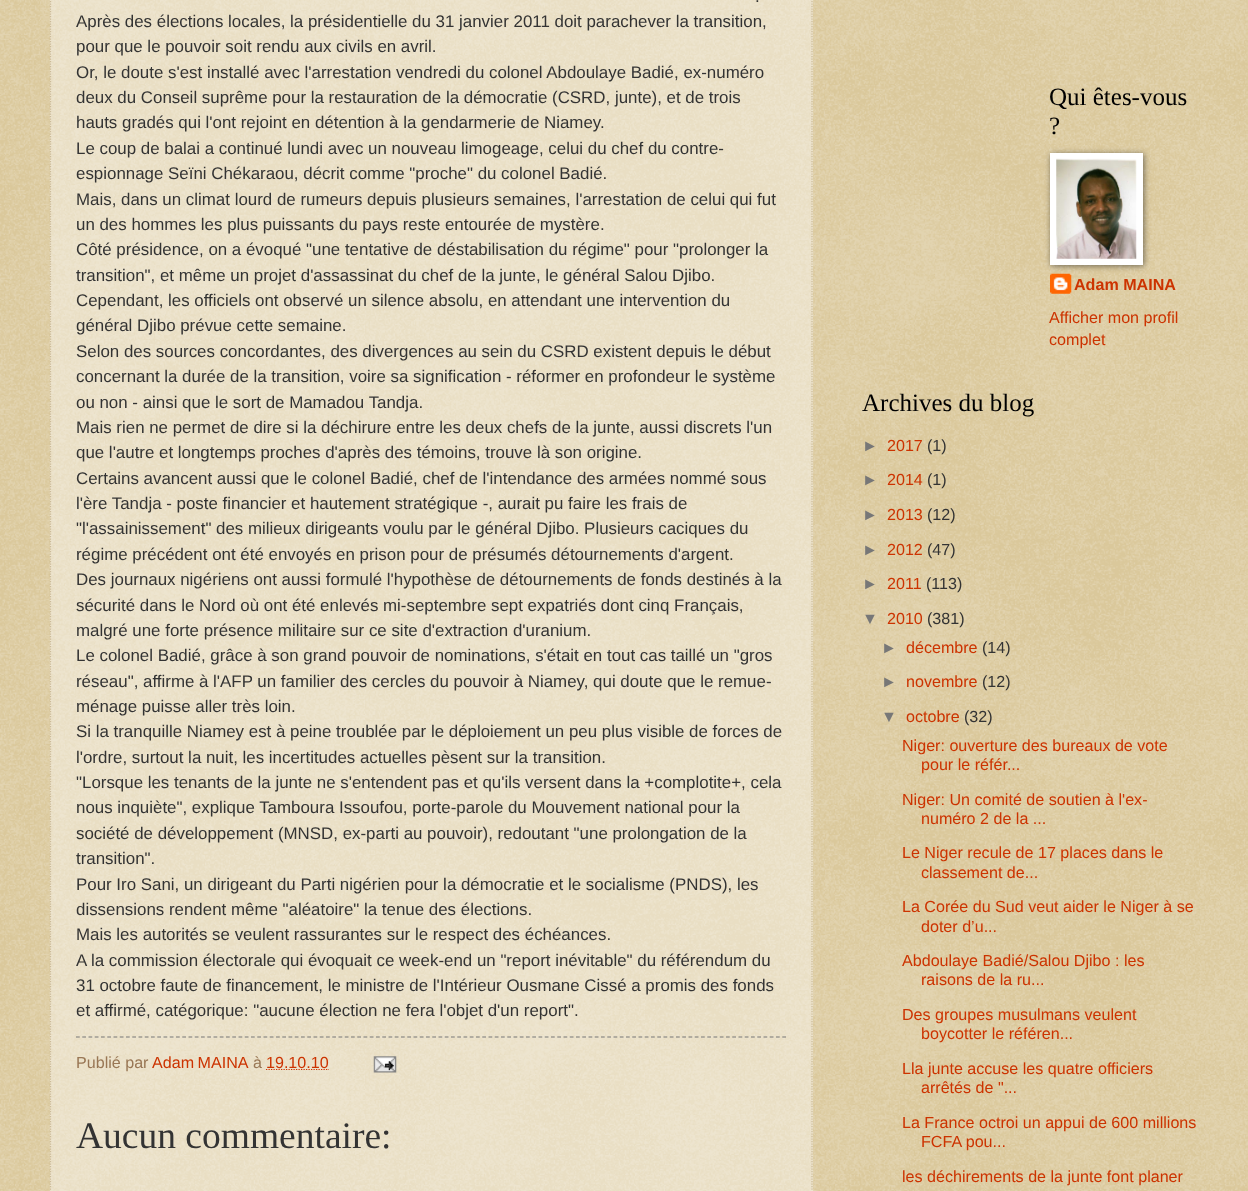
<?xml version="1.0" encoding="UTF-8"?>
<svg xmlns="http://www.w3.org/2000/svg" width="1248" height="1191">
    <defs>
        <filter id="blur1" x="-50%" y="-200%" width="200%" height="500%"><feGaussianBlur stdDeviation="3"/></filter>
    </defs>
    <rect width="100%" height="100%" fill="#C0A154"/>
    <image x="0" y="0" width="1248" height="1191" href="img_01.png"/>
    <rect x="50" y="0" width="763" height="1191" fill="#FFFFFF" fill-opacity="0.4"/>
    <path d="M 812 -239 V 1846" fill="none" stroke="#CCBB99" stroke-width="1.2" stroke-dasharray="1.25 1.25"/>
    <path d="M 50.5 -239 V 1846" fill="none" stroke="#CCBB99" stroke-width="1.2" stroke-dasharray="1.25 1.25"/>
    <text x="755" y="2" font-family="Liberation Sans" font-size="16.9" fill="#333333">.</text>
    <text font-family="Liberation Sans" font-size="16.9" fill="#333333">
        <tspan x="76" y="27">Après des élections locales, la présidentielle du 31 janvier 2011 doit parachever la transition,</tspan>
        <tspan x="76" y="52">pour que le pouvoir soit rendu aux civils en avril.</tspan>
        <tspan x="76" y="78">Or, le doute s'est installé avec l'arrestation vendredi du colonel Abdoulaye Badié, ex-numéro</tspan>
        <tspan x="76" y="103">deux du Conseil suprême pour la restauration de la démocratie (CSRD, junte), et de trois</tspan>
        <tspan x="76" y="128">hauts gradés qui l'ont rejoint en détention à la gendarmerie de Niamey.</tspan>
        <tspan x="76" y="154">Le coup de balai a continué lundi avec un nouveau limogeage, celui du chef du contre-</tspan>
        <tspan x="76" y="179">espionnage Seïni Chékaraou, décrit comme "proche" du colonel Badié.</tspan>
        <tspan x="76" y="205">Mais, dans un climat lourd de rumeurs depuis plusieurs semaines, l'arrestation de celui qui fut</tspan>
        <tspan x="76" y="230">un des hommes les plus puissants du pays reste entourée de mystère.</tspan>
        <tspan x="76" y="255">Côté présidence, on a évoqué "une tentative de déstabilisation du régime" pour "prolonger la</tspan>
        <tspan x="76" y="281">transition", et même un projet d'assassinat du chef de la junte, le général Salou Djibo.</tspan>
        <tspan x="76" y="306">Cependant, les officiels ont observé un silence absolu, en attendant une intervention du</tspan>
        <tspan x="76" y="331">général Djibo prévue cette semaine.</tspan>
        <tspan x="76" y="357">Selon des sources concordantes, des divergences au sein du CSRD existent depuis le début</tspan>
        <tspan x="76" y="382">concernant la durée de la transition, voire sa signification - réformer en profondeur le système</tspan>
        <tspan x="76" y="408">ou non - ainsi que le sort de Mamadou Tandja.</tspan>
        <tspan x="76" y="433">Mais rien ne permet de dire si la déchirure entre les deux chefs de la junte, aussi discrets l'un</tspan>
        <tspan x="76" y="458">que l'autre et longtemps proches d'après des témoins, trouve là son origine.</tspan>
        <tspan x="76" y="484">Certains avancent aussi que le colonel Badié, chef de l'intendance des armées nommé sous</tspan>
        <tspan x="76" y="509">l'ère Tandja - poste financier et hautement stratégique -, aurait pu faire les frais de</tspan>
        <tspan x="76" y="534">"l'assainissement" des milieux dirigeants voulu par le général Djibo. Plusieurs caciques du</tspan>
        <tspan x="76" y="560">régime précédent ont été envoyés en prison pour de présumés détournements d'argent.</tspan>
        <tspan x="76" y="585">Des journaux nigériens ont aussi formulé l'hypothèse de détournements de fonds destinés à la</tspan>
        <tspan x="76" y="611">sécurité dans le Nord où ont été enlevés mi-septembre sept expatriés dont cinq Français,</tspan>
        <tspan x="76" y="636">malgré une forte présence militaire sur ce site d'extraction d'uranium.</tspan>
        <tspan x="76" y="661">Le colonel Badié, grâce à son grand pouvoir de nominations, s'était en tout cas taillé un "gros</tspan>
        <tspan x="76" y="687">réseau", affirme à l'AFP un familier des cercles du pouvoir à Niamey, qui doute que le remue-</tspan>
        <tspan x="76" y="712">ménage puisse aller très loin.</tspan>
        <tspan x="76" y="737">Si la tranquille Niamey est à peine troublée par le déploiement un peu plus visible de forces de</tspan>
        <tspan x="76" y="763">l'ordre, surtout la nuit, les incertitudes actuelles pèsent sur la transition.</tspan>
        <tspan x="76" y="788">"Lorsque les tenants de la junte ne s'entendent pas et qu'ils versent dans la +complotite+, cela</tspan>
        <tspan x="76" y="813">nous inquiète", explique Tamboura Issoufou, porte-parole du Mouvement national pour la</tspan>
        <tspan x="76" y="839">société de développement (MNSD, ex-parti au pouvoir), redoutant "une prolongation de la</tspan>
        <tspan x="76" y="864">transition".</tspan>
        <tspan x="76" y="890">Pour Iro Sani, un dirigeant du Parti nigérien pour la démocratie et le socialisme (PNDS), les</tspan>
        <tspan x="76" y="915">dissensions rendent même "aléatoire" la tenue des élections.</tspan>
        <tspan x="76" y="940">Mais les autorités se veulent rassurantes sur le respect des échéances.</tspan>
        <tspan x="76" y="966">A la commission électorale qui évoquait ce week-end un "report inévitable" du référendum du</tspan>
        <tspan x="76" y="991">31 octobre faute de financement, le ministre de l'Intérieur Ousmane Cissé a promis des fonds</tspan>
        <tspan x="76" y="1016">et affirmé, catégorique: "aucune élection ne fera l'objet d'un report".</tspan>
    </text>
    <path d="M 76 1037 H 786" fill="none" stroke="#777777" stroke-width="1.2" stroke-dasharray="3.75 2.5"/>
    <text x="76" y="1068" font-family="Liberation Sans" font-size="16.1" fill="#997755">Publié par</text>
    <text x="152" y="1068" word-spacing="-1" font-family="Liberation Sans" font-size="16.1" fill="#CC3300">Adam MAINA</text>
    <text x="253" y="1068" font-family="Liberation Sans" font-size="16.1" fill="#997755">à</text>
    <path d="M 266 1069.5 H 329" fill="none" stroke="#CC3300" stroke-width="1.2" stroke-dasharray="1.25 1.25"/>
    <text x="266" y="1068" font-family="Liberation Sans" font-size="16.1" fill="#CC3300">19.10.10</text>
    <image x="373" y="1056" width="24" height="17" href="img_02.png"/>
    <text x="76" y="1148" font-family="Liberation Serif" font-size="37.5" fill="#333333">Aucun commentaire:</text>
    <text font-family="Liberation Serif" font-size="25" fill="#000000">
        <tspan x="1049" y="105">Qui êtes-vous</tspan>
        <tspan x="1049" y="134">?</tspan>
    </text>
    <image x="1050" y="273" width="22" height="21" href="img_04.png"/>
    <rect x="1051" y="154" width="93" height="112" fill="#000000" fill-opacity="0.5" filter="url(#blur1)"/>
    <rect x="1050" y="153" width="93" height="112" fill="#FFFFFF"/>
    <image x="1056" y="158" width="81" height="101" href="img_03.png"/>
    <text x="1074" y="290" font-family="Liberation Sans" font-size="16.1" font-weight="700" fill="#CC3300">Adam MAINA</text>
    <text font-family="Liberation Sans" font-size="16.1" fill="#CC3300">
        <tspan x="1049" y="323">Afficher mon profil</tspan>
        <tspan x="1049" y="345">complet</tspan>
    </text>
    <text x="862" y="411" font-family="Liberation Serif" font-size="25" fill="#000000">Archives du blog</text>
    <text x="862" y="451" font-family="Liberation Sans" font-size="16.1" fill="#777777">►</text>
    <text x="887" y="451" font-family="Liberation Sans" font-size="16.1" fill="#CC3300">2017</text>
    <text x="927" y="451" font-family="Liberation Sans" font-size="16.1" fill="#333333">(1)</text>
    <text x="862" y="485" font-family="Liberation Sans" font-size="16.1" fill="#777777">►</text>
    <text x="887" y="485" font-family="Liberation Sans" font-size="16.1" fill="#CC3300">2014</text>
    <text x="927" y="485" font-family="Liberation Sans" font-size="16.1" fill="#333333">(1)</text>
    <text x="862" y="520" font-family="Liberation Sans" font-size="16.1" fill="#777777">►</text>
    <text x="887" y="520" font-family="Liberation Sans" font-size="16.1" fill="#CC3300">2013</text>
    <text x="927" y="520" font-family="Liberation Sans" font-size="16.1" fill="#333333">(12)</text>
    <text x="862" y="555" font-family="Liberation Sans" font-size="16.1" fill="#777777">►</text>
    <text x="887" y="555" font-family="Liberation Sans" font-size="16.1" fill="#CC3300">2012</text>
    <text x="927" y="555" font-family="Liberation Sans" font-size="16.1" fill="#333333">(47)</text>
    <text x="862" y="589" font-family="Liberation Sans" font-size="16.1" fill="#777777">►</text>
    <text x="887" y="589" font-family="Liberation Sans" font-size="16.1" fill="#CC3300">2011</text>
    <text x="926" y="589" font-family="Liberation Sans" font-size="16.1" fill="#333333">(113)</text>
    <text x="862" y="624" font-family="Liberation Sans" font-size="16.1" fill="#777777">▼</text>
    <text x="887" y="624" font-family="Liberation Sans" font-size="16.1" fill="#CC3300">2010</text>
    <text x="927" y="624" font-family="Liberation Sans" font-size="16.1" fill="#333333">(381)</text>
    <text x="881" y="653" font-family="Liberation Sans" font-size="16.1" fill="#777777">►</text>
    <text x="906" y="653" font-family="Liberation Sans" font-size="16.1" fill="#CC3300">décembre</text>
    <text x="982" y="653" font-family="Liberation Sans" font-size="16.1" fill="#333333">(14)</text>
    <text x="881" y="687" font-family="Liberation Sans" font-size="16.1" fill="#777777">►</text>
    <text x="906" y="687" font-family="Liberation Sans" font-size="16.1" fill="#CC3300">novembre</text>
    <text x="982" y="687" font-family="Liberation Sans" font-size="16.1" fill="#333333">(12)</text>
    <text x="881" y="722" font-family="Liberation Sans" font-size="16.1" fill="#777777">▼</text>
    <text x="906" y="722" font-family="Liberation Sans" font-size="16.1" fill="#CC3300">octobre</text>
    <text x="964" y="722" font-family="Liberation Sans" font-size="16.1" fill="#333333">(32)</text>
    <text x="902" y="751" font-family="Liberation Sans" font-size="16.1" fill="#CC3300">Niger: ouverture des bureaux de vote</text>
    <text x="921" y="770" font-family="Liberation Sans" font-size="16.1" fill="#CC3300">pour le référ...</text>
    <text x="902" y="805" font-family="Liberation Sans" font-size="16.1" fill="#CC3300">Niger: Un comité de soutien à l'ex-</text>
    <text x="921" y="824" font-family="Liberation Sans" font-size="16.1" fill="#CC3300">numéro 2 de la ...</text>
    <text x="902" y="858" font-family="Liberation Sans" font-size="16.1" fill="#CC3300">Le Niger recule de 17 places dans le</text>
    <text x="921" y="878" font-family="Liberation Sans" font-size="16.1" fill="#CC3300">classement de...</text>
    <text x="902" y="912" font-family="Liberation Sans" font-size="16.1" fill="#CC3300">La Corée du Sud veut aider le Niger à se</text>
    <text x="921" y="932" font-family="Liberation Sans" font-size="16.1" fill="#CC3300">doter d’u...</text>
    <text x="902" y="966" font-family="Liberation Sans" font-size="16.1" fill="#CC3300">Abdoulaye Badié/Salou Djibo : les</text>
    <text x="921" y="985" font-family="Liberation Sans" font-size="16.1" fill="#CC3300">raisons de la ru...</text>
    <text x="902" y="1020" font-family="Liberation Sans" font-size="16.1" fill="#CC3300">Des groupes musulmans veulent</text>
    <text x="921" y="1039" font-family="Liberation Sans" font-size="16.1" fill="#CC3300">boycotter le référen...</text>
    <text x="902" y="1074" font-family="Liberation Sans" font-size="16.1" fill="#CC3300">Lla junte accuse les quatre officiers</text>
    <text x="921" y="1093" font-family="Liberation Sans" font-size="16.1" fill="#CC3300">arrêtés de "...</text>
    <text x="902" y="1128" font-family="Liberation Sans" font-size="16.1" fill="#CC3300">La France octroi un appui de 600 millions</text>
    <text x="921" y="1147" font-family="Liberation Sans" font-size="16.1" fill="#CC3300">FCFA pou...</text>
    <text x="902" y="1182" font-family="Liberation Sans" font-size="16.1" fill="#CC3300">les déchirements de la junte font planer</text>
</svg>
